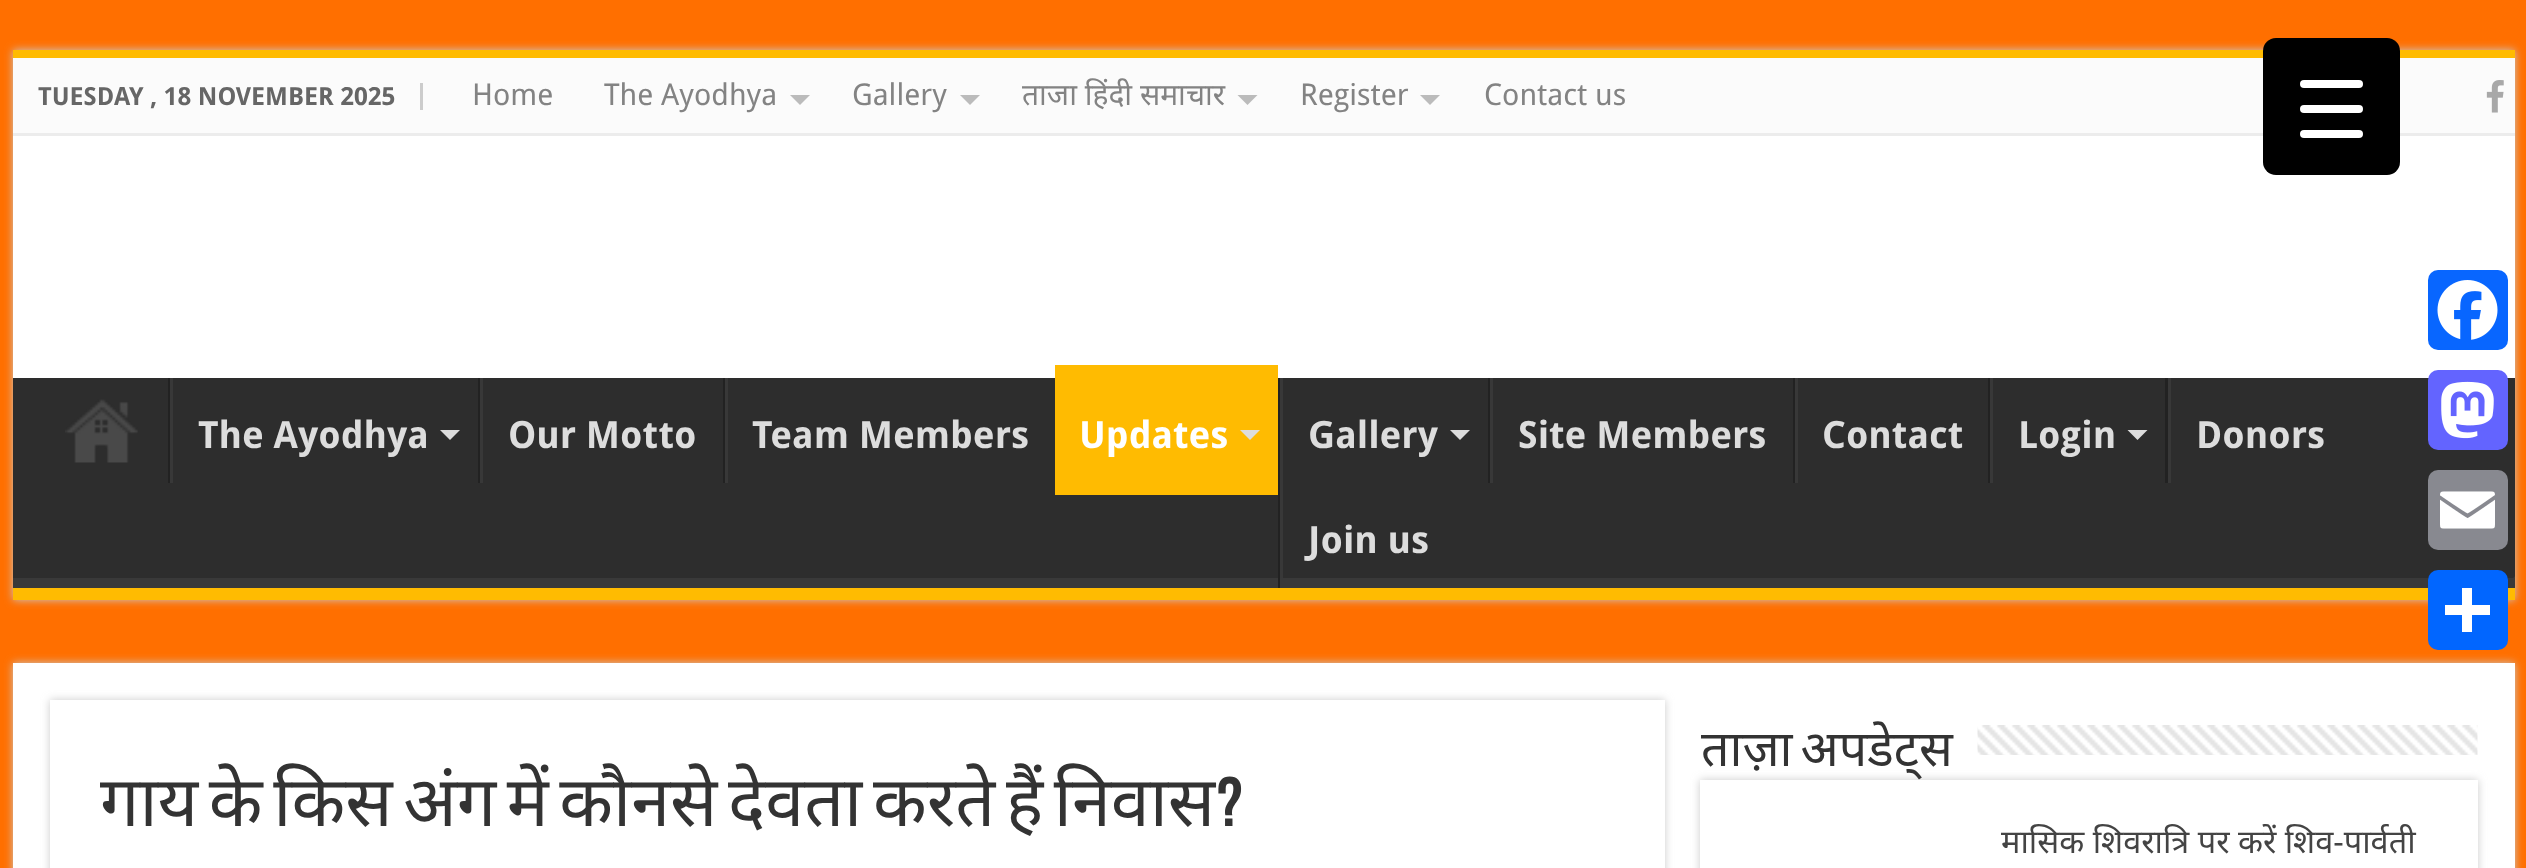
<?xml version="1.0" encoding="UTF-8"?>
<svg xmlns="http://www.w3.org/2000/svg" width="2526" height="868">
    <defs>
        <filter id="blur1" x="-50%" y="-200%" width="200%" height="500%"><feGaussianBlur stdDeviation="4"/></filter>
        <clipPath id="clip1"><rect x="13" y="378" width="2502" height="210"/></clipPath>
        <clipPath id="clip2"><path d="M 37 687 H 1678 V 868 H 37 Z M 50 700 H 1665 V 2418 H 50 Z" clip-rule="evenodd"/></clipPath>
    </defs>
    <rect width="100%" height="100%" fill="#FF6F00"/>
    <rect x="13" y="50" width="2502" height="550" fill="#CACACA" filter="url(#blur1)"/>
    <rect x="13" y="136" width="2502" height="242" fill="#FFFFFF"/>
    <rect x="13" y="50" width="2502" height="8" fill="#FFBB01"/>
    <rect x="13" y="58" width="2502" height="75" fill="#FBFBFB"/>
    <rect x="13" y="133" width="2502" height="3" fill="#ECECEC"/>
    <rect x="2263" y="38" width="137" height="137" rx="13" fill="#000000"/>
    <rect x="2300" y="105" width="63" height="8" rx="4" fill="#FFFFFF"/>
    <rect x="2300" y="80" width="63" height="8" rx="4" fill="#FFFFFF"/>
    <rect x="2300" y="130" width="63" height="8" rx="4" fill="#FFFFFF"/>
    <rect x="420" y="83" width="3" height="27" fill="#CCCCCC"/>
    <text x="38" y="105" font-family="Droid Sans" font-size="25" font-weight="700" fill="#666666">TUESDAY , 18 NOVEMBER 2025</text>
    <text x="472" y="105" font-family="Droid Sans" font-size="30" fill="#838383">Home</text>
    <text x="604" y="105" font-family="Droid Sans" font-size="30" fill="#838383">The Ayodhya</text>
    <path d="M 790 95 H 810 L 800 105 Z" fill="#BBBBBB"/>
    <text x="852" y="105" font-family="Droid Sans" font-size="30" fill="#838383">Gallery</text>
    <path d="M 960 95 H 980 L 970 105 Z" fill="#BBBBBB"/>
    <text x="1022" y="105" font-family="Noto Sans" font-size="30" fill="#838383">ताजा हिंदी समाचार</text>
    <path d="M 1237.5 95 H 1257.5 L 1247.5 105 Z" fill="#BBBBBB"/>
    <text x="1300" y="105" font-family="Droid Sans" font-size="30" fill="#838383">Register</text>
    <path d="M 1420 95 H 1440 L 1430 105 Z" fill="#BBBBBB"/>
    <text x="1484" y="105" font-family="Droid Sans" font-size="30" fill="#838383">Contact us</text>
    <image x="2486" y="80" width="18" height="33" href="img_01.png"/>
    <rect x="13" y="378" width="2502" height="200" fill="#2D2D2D"/>
    <g clip-path="url(#clip1)">
        <path d="M -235 130 H 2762 V 835 H -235 Z M 10 362 H 2512 C 2514 362 2515 364 2515 365 V 575 C 2515 576 2514 578 2512 578 H 10 C 9 578 8 576 8 575 V 365 C 8 364 9 362 10 362 Z" fill="#393939" fill-rule="evenodd"/>
    </g>
    <rect x="13" y="588" width="2502" height="12" fill="#FFBB01"/>
    <image x="65" y="399" width="73" height="64" href="img_02.png"/>
    <rect x="168" y="378" width="2" height="105" fill="#222222"/>
    <rect x="170" y="378" width="3" height="105" fill="#383838"/>
    <text x="198" y="448" font-family="Droid Sans" font-size="37.5" font-weight="700" fill="#DDDDDD">The Ayodhya</text>
    <path d="M 440 430 H 460 L 450 440 Z" fill="#DDDDDD"/>
    <rect x="478" y="378" width="2" height="105" fill="#222222"/>
    <rect x="480" y="378" width="3" height="105" fill="#383838"/>
    <text x="508" y="448" font-family="Droid Sans" font-size="37.5" font-weight="700" fill="#DDDDDD">Our Motto</text>
    <rect x="723" y="378" width="2" height="105" fill="#222222"/>
    <rect x="725" y="378" width="3" height="105" fill="#383838"/>
    <text x="752" y="448" font-family="Droid Sans" font-size="37.5" font-weight="700" fill="#DDDDDD">Team Members</text>
    <rect x="1055" y="365" width="223" height="130" fill="#FFBB01"/>
    <text x="1079" y="448" font-family="Droid Sans" font-size="37.5" font-weight="700" fill="#FFFFFF">Updates</text>
    <path d="M 1240 430 H 1260 L 1250 440 Z" fill="#DDDDDD"/>
    <rect x="1278" y="378" width="2" height="210" fill="#222222"/>
    <rect x="1280" y="378" width="3" height="200" fill="#383838"/>
    <text x="1308" y="448" font-family="Droid Sans" font-size="37.5" font-weight="700" fill="#DDDDDD">Gallery</text>
    <path d="M 1450 430 H 1470 L 1460 440 Z" fill="#DDDDDD"/>
    <rect x="1488" y="378" width="2" height="105" fill="#222222"/>
    <rect x="1490" y="378" width="3" height="105" fill="#383838"/>
    <text x="1518" y="448" font-family="Droid Sans" font-size="37.5" font-weight="700" fill="#DDDDDD">Site Members</text>
    <rect x="1793" y="378" width="2" height="105" fill="#222222"/>
    <rect x="1795" y="378" width="3" height="105" fill="#383838"/>
    <text x="1822" y="448" font-family="Droid Sans" font-size="37.5" font-weight="700" fill="#DDDDDD">Contact</text>
    <rect x="1988" y="378" width="2" height="105" fill="#222222"/>
    <rect x="1990" y="378" width="3" height="105" fill="#383838"/>
    <text x="2018" y="448" font-family="Droid Sans" font-size="37.5" font-weight="700" fill="#DDDDDD">Login</text>
    <path d="M 2127.5 430 H 2147.5 L 2137.5 440 Z" fill="#DDDDDD"/>
    <rect x="2165" y="378" width="3" height="105" fill="#222222"/>
    <rect x="2168" y="378" width="3" height="105" fill="#383838"/>
    <text x="2196" y="448" font-family="Droid Sans" font-size="37.5" font-weight="700" fill="#DDDDDD">Donors</text>
    <text x="1308" y="553" font-family="Droid Sans" font-size="37.5" font-weight="700" fill="#DDDDDD">Join us</text>
    <rect x="13" y="663" width="2502" height="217" fill="#CACACA" filter="url(#blur1)"/>
    <rect x="13" y="663" width="2502" height="205" fill="#FFFFFF"/>
    <g clip-path="url(#clip2)">
        <rect x="50" y="700" width="1615" height="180" fill="#CACACA" filter="url(#blur1)"/>
    </g>
    <text x="100" y="826" word-spacing="-7.5" font-family="Noto Sans" font-size="70" fill="#333333">गाय के किस अंग में कौनसे देवता करते हैं निवास</text>
    <text x="1217" y="826" font-family="Bebas Neue" font-size="70" font-weight="700" fill="#333333">?</text>
    <rect x="1700" y="780" width="778" height="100" fill="#CACACA" filter="url(#blur1)"/>
    <text x="1701" y="766" word-spacing="-5" font-family="Noto Sans" font-size="50" fill="#333333">ताज़ा अपडेट्स</text>
    <image x="1977" y="725" width="501" height="30" href="img_03.png"/>
    <rect x="1700" y="780" width="778" height="88" fill="#FFFFFF"/>
    <text x="2001" y="853" font-family="Noto Sans" font-size="32.5" fill="#444444">मासिक शिवरात्रि पर करें शिव-पार्वती</text>
    <rect x="2428" y="270" width="80" height="80" rx="10" fill="#0866FF"/>
    <image x="2437" y="280" width="61" height="60" href="img_04.png"/>
    <rect x="2428" y="370" width="80" height="80" rx="10" fill="#6364FF"/>
    <image x="2441" y="381" width="53" height="58" href="img_05.png"/>
    <rect x="2428" y="470" width="80" height="80" rx="10" fill="#888990"/>
    <image x="2440" y="491" width="55" height="38" href="img_06.png"/>
    <rect x="2428" y="570" width="80" height="80" rx="10" fill="#0166FF"/>
    <rect x="2462" y="588" width="10" height="44" fill="#FFFFFF"/>
    <rect x="2445" y="605" width="45" height="10" fill="#FFFFFF"/>
</svg>
